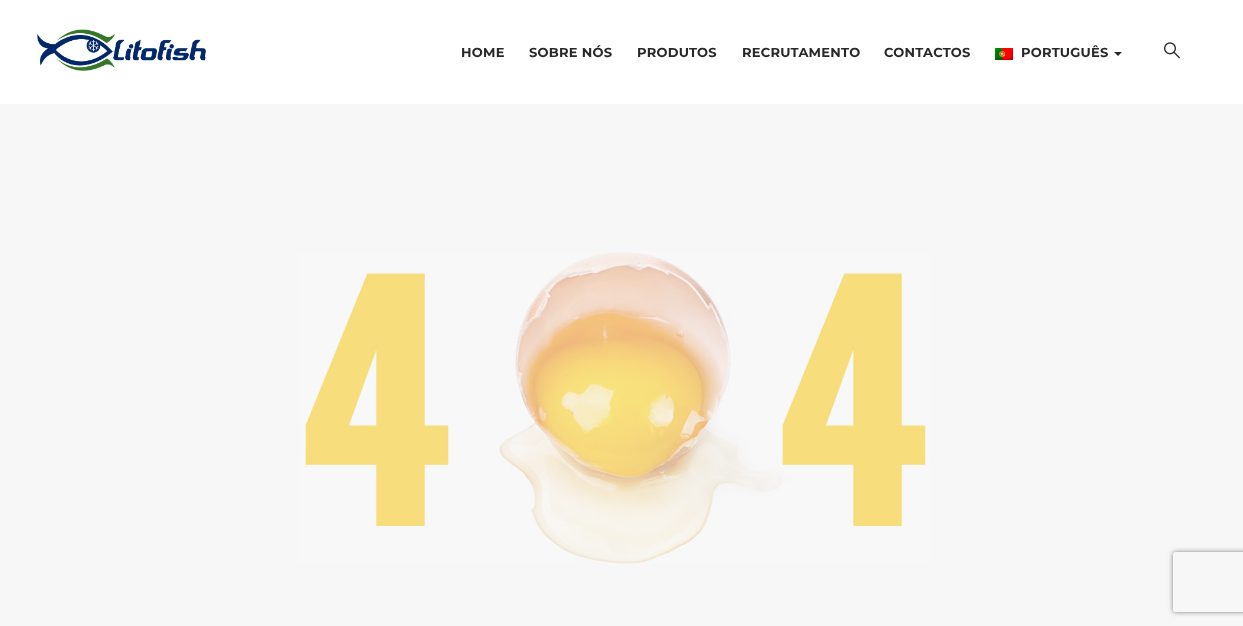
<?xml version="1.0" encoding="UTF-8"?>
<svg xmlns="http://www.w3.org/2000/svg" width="1243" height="626">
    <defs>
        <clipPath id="clip1"><path d="M 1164 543 H 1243 V 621 H 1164 Z M 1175 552 H 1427 C 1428 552 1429 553 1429 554 V 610 C 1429 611 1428 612 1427 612 H 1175 C 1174 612 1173 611 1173 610 V 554 C 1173 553 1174 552 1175 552 Z" clip-rule="evenodd"/></clipPath>
        <filter id="blur1" x="-50%" y="-200%" width="200%" height="500%"><feGaussianBlur stdDeviation="2.5"/></filter>
    </defs>
    <rect width="100%" height="100%" fill="#FFFFFF"/>
    <image x="37" y="29" width="169" height="42" href="img_01.png"/>
    <text x="461" y="57" font-family="Montserrat" font-size="13" font-weight="700" letter-spacing="0.25" fill="#282828">HOME</text>
    <text x="529" y="57" font-family="Montserrat" font-size="13" font-weight="700" letter-spacing="0.25" fill="#282828">SOBRE NÓS</text>
    <text x="637" y="57" font-family="Montserrat" font-size="13" font-weight="700" letter-spacing="0.25" fill="#282828">PRODUTOS</text>
    <text x="742" y="57" font-family="Montserrat" font-size="13" font-weight="700" letter-spacing="0.25" fill="#282828">RECRUTAMENTO</text>
    <text x="884" y="57" font-family="Montserrat" font-size="13" font-weight="700" letter-spacing="0.25" fill="#282828">CONTACTOS</text>
    <image x="995" y="48" width="18" height="12" href="img_02.png"/>
    <text x="1021" y="57" font-family="Montserrat" font-size="13" font-weight="700" letter-spacing="0.25" fill="#282828">PORTUGUÊS</text>
    <path d="M 1114 52 H 1122 L 1118 56 Z" fill="#282828"/>
    <image x="1164" y="42" width="16" height="17" href="img_03.png"/>
    <rect x="0" y="104" width="1243" height="522" fill="#F7F7F7"/>
    <image x="299" y="252" width="632" height="312" href="img_04.png"/>
    <g clip-path="url(#clip1)">
        <rect x="1173" y="552" width="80" height="60" rx="2" fill="#808080" filter="url(#blur1)"/>
    </g>
</svg>
